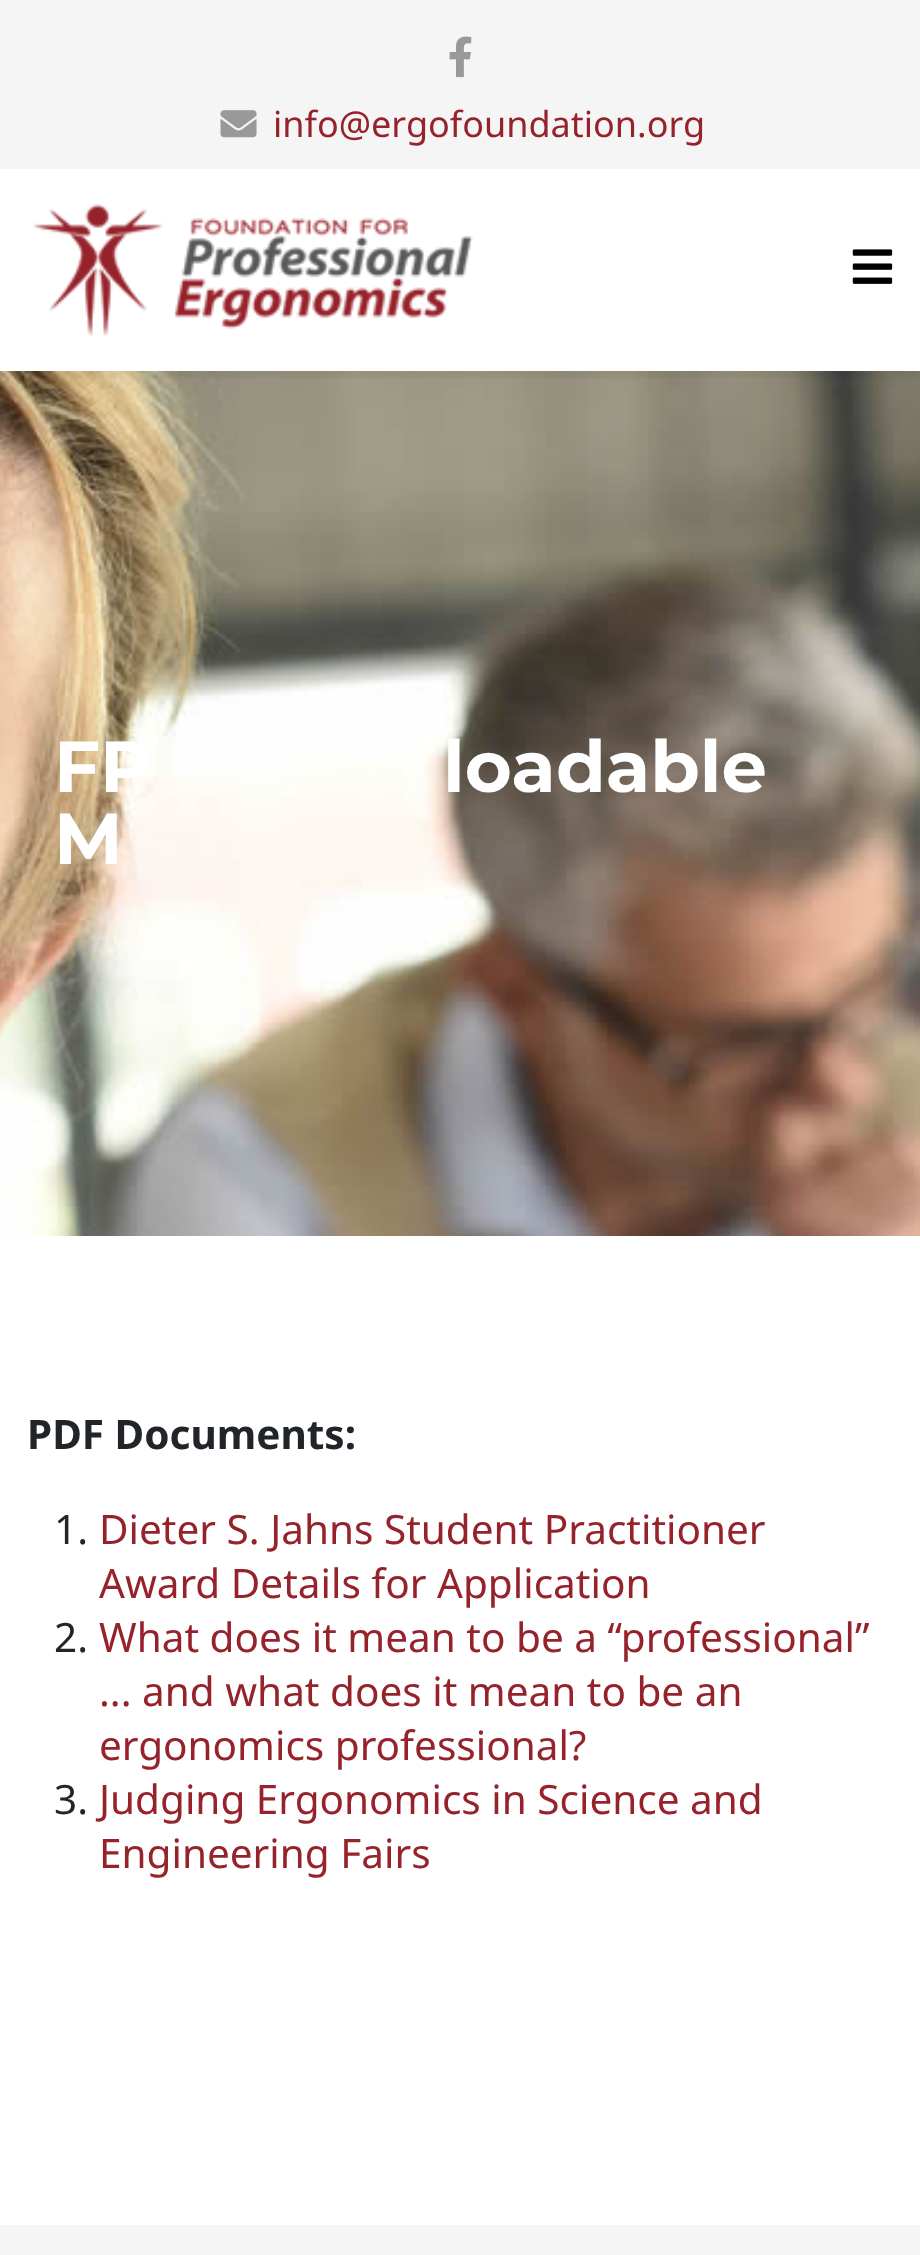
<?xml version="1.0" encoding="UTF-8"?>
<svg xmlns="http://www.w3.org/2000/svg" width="920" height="2255">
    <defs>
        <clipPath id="clip1"><rect x="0" y="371" width="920" height="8"/></clipPath>
        <filter id="blur1" x="-50%" y="-200%" width="200%" height="500%"><feGaussianBlur stdDeviation="3.5"/></filter>
    </defs>
    <rect width="100%" height="100%" fill="#FFFFFF"/>
    <rect x="0" y="0" width="920" height="169" fill="#F5F5F5"/>
    <image x="449" y="36" width="23" height="42" href="img_01.png"/>
    <image x="220" y="110" width="37" height="28" href="img_02.png"/>
    <text x="273" y="137" font-family="Noto Sans" font-size="36" fill="#96222B">info@ergofoundation.org</text>
    <image x="0" y="371" width="920" height="865" href="img_05.png"/>
    <g clip-path="url(#clip1)">
        <rect x="0" y="176" width="920" height="202" fill="#000000" fill-opacity="0.05" filter="url(#blur1)"/>
    </g>
    <image x="33" y="204" width="440" height="132" href="img_03.png"/>
    <image x="852" y="249" width="41" height="35" href="img_04.png"/>
    <text x="54" y="792" font-family="Montserrat" font-size="72" font-weight="700" fill="#FFFFFF">FP</text>
    <text x="443" y="792" font-family="Montserrat" font-size="72" font-weight="700" fill="#FFFFFF">loadable</text>
    <text x="54" y="864" font-family="Montserrat" font-size="72" font-weight="700" fill="#FFFFFF">M</text>
    <text x="27" y="1449" font-family="Noto Sans" font-size="40.5" font-weight="700" fill="#212529">PDF Documents:</text>
    <text x="54" y="1544" font-family="Noto Sans" font-size="40.5" fill="#212529">1.</text>
    <text font-family="Noto Sans" font-size="40.5" fill="#96222B">
        <tspan x="99" y="1544">Dieter S. Jahns Student Practitioner</tspan>
        <tspan x="99" y="1598">Award Details for Application</tspan>
    </text>
    <text x="54" y="1652" font-family="Noto Sans" font-size="40.5" fill="#212529">2.</text>
    <text font-family="Noto Sans" font-size="40.5" fill="#96222B">
        <tspan x="99" y="1652">What does it mean to be a “professional”</tspan>
        <tspan x="99" y="1706">... and what does it mean to be an</tspan>
        <tspan x="99" y="1760">ergonomics professional?</tspan>
    </text>
    <text x="54" y="1814" font-family="Noto Sans" font-size="40.5" fill="#212529">3.</text>
    <text font-family="Noto Sans" font-size="40.5" fill="#96222B">
        <tspan x="99" y="1814">Judging Ergonomics in Science and</tspan>
        <tspan x="99" y="1868">Engineering Fairs</tspan>
    </text>
    <rect x="0" y="2225" width="920" height="30" fill="#F5F5F5"/>
</svg>
